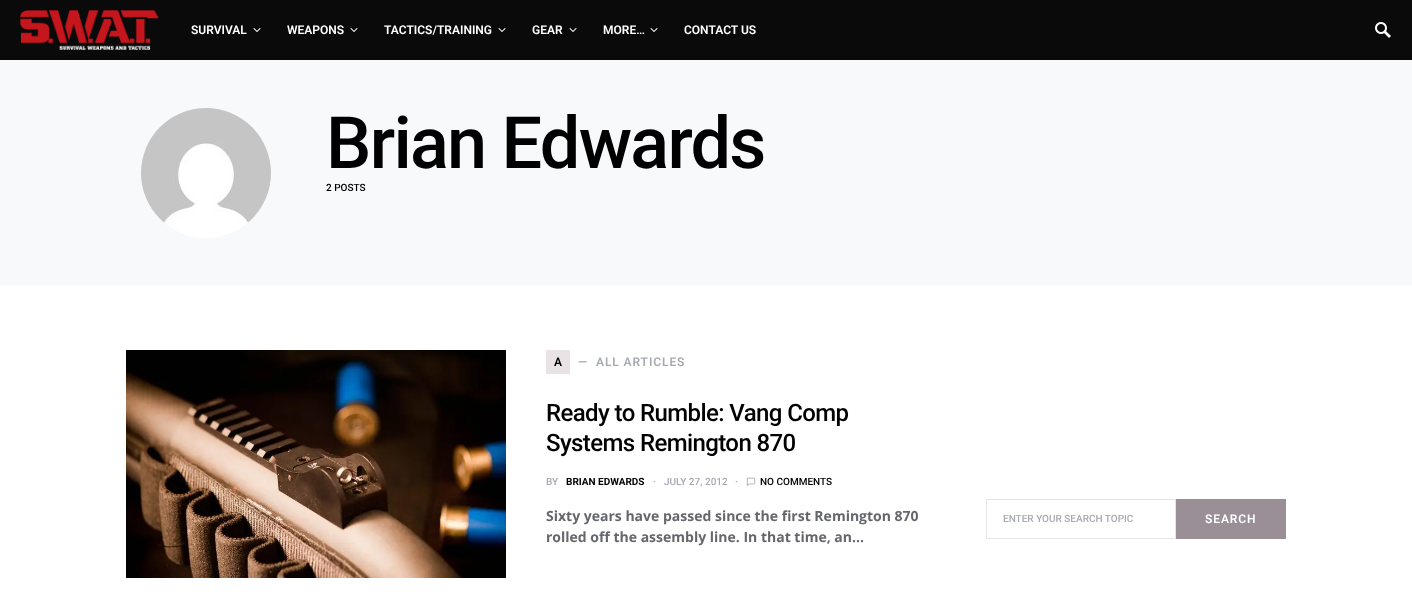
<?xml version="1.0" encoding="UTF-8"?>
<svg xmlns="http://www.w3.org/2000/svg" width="1412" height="611">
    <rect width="100%" height="100%" fill="#FFFFFF"/>
    <rect x="0" y="0" width="1412" height="60" fill="#0A0A0A"/>
    <image x="20" y="10" width="139" height="40" href="img_01.png"/>
    <text x="191" y="34" font-family="Roboto" font-size="12" font-weight="600" fill="#FFFFFF">SURVIVAL</text>
    <image x="253" y="28" width="8" height="4" href="img_02.png"/>
    <text x="287" y="34" font-family="Roboto" font-size="12" font-weight="600" fill="#FFFFFF">WEAPONS</text>
    <image x="350" y="28" width="8" height="4" href="img_02.png"/>
    <text x="384" y="34" font-family="Roboto" font-size="12" font-weight="600" fill="#FFFFFF">TACTICS/TRAINING</text>
    <image x="498" y="28" width="8" height="4" href="img_02.png"/>
    <text x="532" y="34" font-family="Roboto" font-size="12" font-weight="600" fill="#FFFFFF">GEAR</text>
    <image x="569" y="28" width="8" height="4" href="img_02.png"/>
    <text x="603" y="34" font-family="Roboto" font-size="12" font-weight="600" fill="#FFFFFF">MORE…</text>
    <image x="650" y="28" width="8" height="4" href="img_02.png"/>
    <text x="684" y="34" font-family="Roboto" font-size="12" font-weight="600" fill="#FFFFFF">CONTACT US</text>
    <image x="1375" y="22" width="16" height="16" href="img_03.png"/>
    <rect x="0" y="60" width="1412" height="226" fill="#F8F9FA"/>
    <image x="141" y="108" width="130" height="130" href="img_04.png"/>
    <text x="326" y="168" font-family="Roboto" font-size="72" font-weight="500" letter-spacing="-1.75" fill="#000000">Brian Edwards</text>
    <text x="326" y="191" font-family="Roboto" font-size="10" font-weight="500" fill="#000000">2 POSTS</text>
    <image x="126" y="350" width="380" height="228" href="img_05.png"/>
    <text x="346" y="468" font-family="Roboto" font-size="12" font-weight="600" letter-spacing="0.9" fill="#724F38">E</text>
    <rect x="546" y="350" width="24" height="24" fill="#E9E3E6"/>
    <text x="554" y="366" font-family="Roboto" font-size="12" font-weight="600" letter-spacing="0.9" fill="#000000">A</text>
    <text x="578" y="366" font-family="Roboto" font-size="12" font-weight="600" letter-spacing="0.9" fill="#A8AAB2">—</text>
    <text x="596" y="366" font-family="Roboto" font-size="12" font-weight="600" letter-spacing="0.9" fill="#A8AAB2">ALL ARTICLES</text>
    <text font-family="Roboto" font-size="24" font-weight="500" letter-spacing="-0.6" fill="#000000">
        <tspan x="546" y="421">Ready to Rumble: Vang Comp</tspan>
        <tspan x="546" y="451">Systems Remington 870</tspan>
    </text>
    <text x="546" y="485" font-family="Roboto" font-size="10" font-weight="500" fill="#A8AAB2">BY</text>
    <text x="566" y="485" font-family="Roboto" font-size="10" font-weight="700" fill="#000000">BRIAN EDWARDS</text>
    <text x="653" y="485" font-family="Roboto" font-size="10" font-weight="500" fill="#A8AAB2">·</text>
    <text x="664" y="485" font-family="Roboto" font-size="10" font-weight="500" fill="#A8AAB2">JULY 27, 2012</text>
    <text x="735" y="485" font-family="Roboto" font-size="10" font-weight="500" fill="#A8AAB2">·</text>
    <image x="746" y="477" width="10" height="9" href="img_06.png"/>
    <text x="760" y="485" font-family="Roboto" font-size="10" font-weight="500" fill="#000000">NO COMMENTS</text>
    <text font-family="Open Sans" font-size="14" font-weight="700" fill="#66676D">
        <tspan x="546" y="521">Sixty years have passed since the first Remington 870</tspan>
        <tspan x="546" y="542">rolled off the assembly line. In that time, an…</tspan>
    </text>
    <rect x="986.5" y="499.5" width="189" height="39" fill="none" stroke="#E3E5E7"/>
    <text x="1003" y="522" font-family="Roboto" font-size="10" font-weight="500" fill="#A8AAB2">ENTER YOUR SEARCH TOPIC</text>
    <rect x="1176" y="499" width="110" height="40" fill="#9A8F97"/>
    <text x="1205" y="523" font-family="Roboto" font-size="12" font-weight="600" letter-spacing="0.9" fill="#FFFFFF">SEARCH</text>
</svg>
